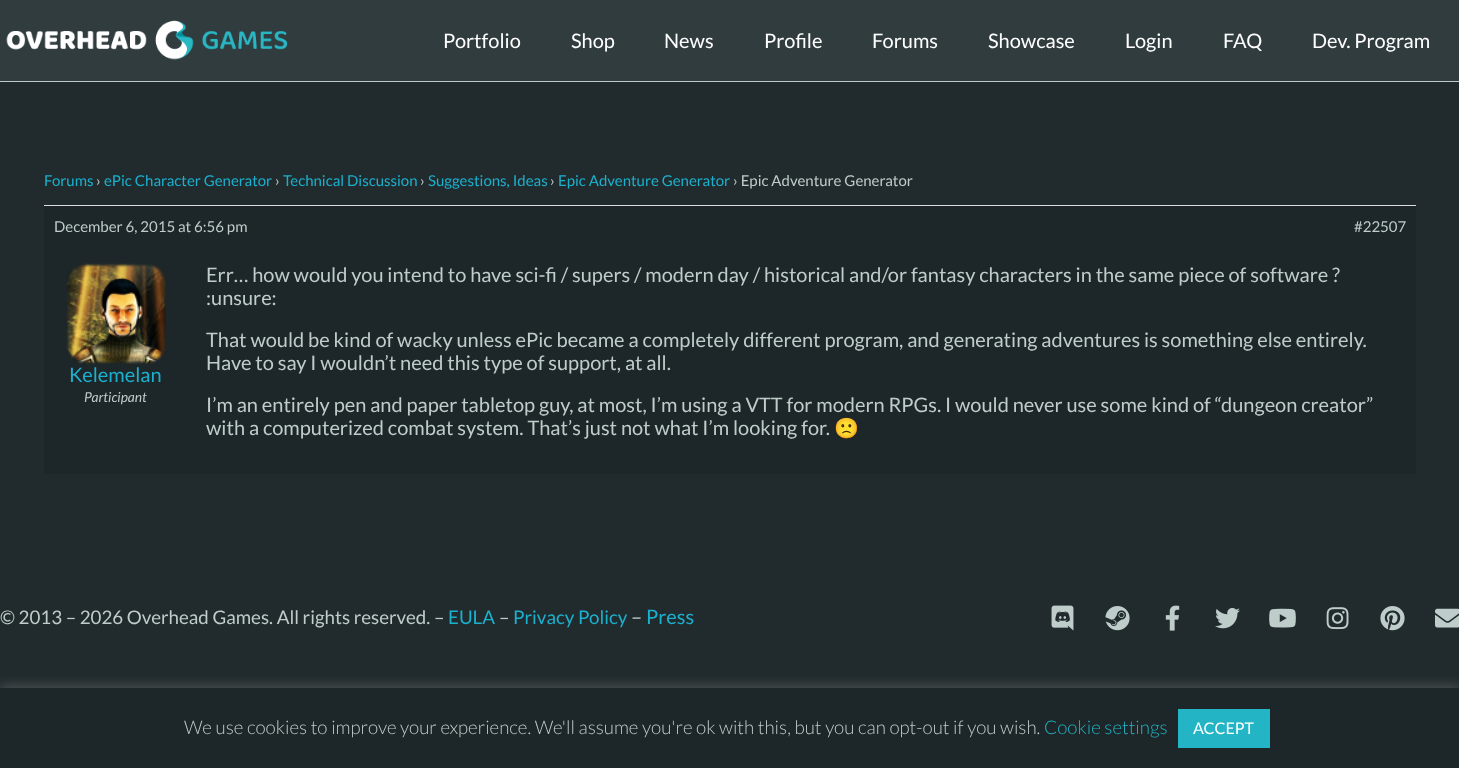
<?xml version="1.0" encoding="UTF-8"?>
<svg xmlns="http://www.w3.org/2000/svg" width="1459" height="768">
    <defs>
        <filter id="blur1" x="-50%" y="-200%" width="200%" height="500%"><feGaussianBlur stdDeviation="6"/></filter>
    </defs>
    <rect width="100%" height="100%" fill="#212B2D"/>
    <rect x="0" y="0" width="1459" height="81" fill="#313C3F"/>
    <rect x="0" y="81" width="1459" height="1" fill="#BECCCA"/>
    <image x="6" y="20" width="282" height="40" href="img_01.png"/>
    <text x="443" y="48" font-family="Lato" font-size="20" fill="#FFFFFF">Portfolio</text>
    <text x="571" y="48" font-family="Lato" font-size="20" fill="#FFFFFF">Shop</text>
    <text x="664" y="48" font-family="Lato" font-size="20" fill="#FFFFFF">News</text>
    <text x="764" y="48" font-family="Lato" font-size="20" fill="#FFFFFF">Profile</text>
    <text x="872" y="48" font-family="Lato" font-size="20" fill="#FFFFFF">Forums</text>
    <text x="988" y="48" font-family="Lato" font-size="20" fill="#FFFFFF">Showcase</text>
    <text x="1125" y="48" font-family="Lato" font-size="20" fill="#FFFFFF">Login</text>
    <text x="1223" y="48" font-family="Lato" font-size="20" fill="#FFFFFF">FAQ</text>
    <text x="1312" y="48" font-family="Lato" font-size="20" fill="#FFFFFF">Dev. Program</text>
    <text x="44" y="186" font-family="Lato" font-size="15" fill="#1BB0CE">Forums</text>
    <text x="96" y="186" font-family="Lato" font-size="15" fill="#BECCCA">›</text>
    <text x="104" y="186" font-family="Lato" font-size="15" fill="#1BB0CE">ePic Character Generator</text>
    <text x="275" y="186" font-family="Lato" font-size="15" fill="#BECCCA">›</text>
    <text x="283" y="186" font-family="Lato" font-size="15" fill="#1BB0CE">Technical Discussion</text>
    <text x="420" y="186" font-family="Lato" font-size="15" fill="#BECCCA">›</text>
    <text x="428" y="186" font-family="Lato" font-size="15" fill="#1BB0CE">Suggestions, Ideas</text>
    <text x="550" y="186" font-family="Lato" font-size="15" fill="#BECCCA">›</text>
    <text x="558" y="186" font-family="Lato" font-size="15" fill="#1BB0CE">Epic Adventure Generator</text>
    <text x="733" y="186" font-family="Lato" font-size="15" fill="#BECCCA">› Epic Adventure Generator</text>
    <rect x="44" y="206" width="1372" height="268" fill="#1D2628"/>
    <rect x="44" y="205" width="1372" height="1" fill="#DDDDDD"/>
    <text x="54" y="232" font-family="Lato" font-size="15" fill="#BECCCA">December 6, 2015 at 6:56 pm</text>
    <text x="1354" y="232" font-family="Lato" font-size="15" fill="#BECCCA">#22507</text>
    <image x="66" y="263" width="100" height="101" href="img_02.png"/>
    <text x="69" y="382" font-family="Lato" font-size="20" fill="#1BB0CE">Kelemelan</text>
    <text x="84" y="402" font-family="Lato" font-size="13.75" font-style="italic" fill="#BECCCA">Participant</text>
    <text font-family="Lato" font-size="20" fill="#BECCCA">
        <tspan x="206" y="282">Err… how would you intend to have sci-fi / supers / modern day / historical and/or fantasy characters in the same piece of software ?</tspan>
        <tspan x="206" y="305">:unsure:</tspan>
    </text>
    <text font-family="Lato" font-size="20" fill="#BECCCA">
        <tspan x="206" y="347">That would be kind of wacky unless ePic became a completely different program, and generating adventures is something else entirely.</tspan>
        <tspan x="206" y="370">Have to say I wouldn’t need this type of support, at all.</tspan>
    </text>
    <text font-family="Lato" font-size="20" fill="#BECCCA">
        <tspan x="206" y="412">I’m an entirely pen and paper tabletop guy, at most, I’m using a VTT for modern RPGs. I would never use some kind of “dungeon creator”</tspan>
        <tspan x="206" y="435">with a computerized combat system. That’s just not what I’m looking for.</tspan>
    </text>
    <text x="834" y="435" font-family="Noto Color Emoji" font-size="20" fill="#BECCCA">🙁</text>
    <text x="0" y="624" font-family="Lato" font-size="18.75" fill="#BECCCA">© 2013 – 2026 Overhead Games. All rights reserved. –</text>
    <text x="448" y="624" font-family="Lato" font-size="18.75" fill="#1BB0CE">EULA</text>
    <text x="499" y="624" font-family="Lato" font-size="18.75" fill="#BECCCA">–</text>
    <text x="513" y="624" font-family="Lato" font-size="18.75" fill="#1BB0CE">Privacy Policy</text>
    <text x="631" y="624" font-family="Lato" font-size="20" fill="#BECCCA">–</text>
    <text x="646" y="624" font-family="Lato" font-size="20" fill="#1BB0CE">Press</text>
    <image x="1051" y="605" width="23" height="26" href="img_03.png"/>
    <image x="1105" y="606" width="25" height="25" href="img_04.png"/>
    <image x="1165" y="605" width="15" height="26" href="img_05.png"/>
    <image x="1215" y="608" width="25" height="21" href="img_06.png"/>
    <image x="1269" y="608" width="27" height="20" href="img_07.png"/>
    <image x="1326" y="607" width="23" height="23" href="img_08.png"/>
    <image x="1380" y="606" width="25" height="25" href="img_09.png"/>
    <image x="1435" y="608" width="24" height="20" href="img_10.png"/>
    <rect x="0" y="686" width="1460" height="82" fill="#ACABAB" fill-opacity="0.3" filter="url(#blur1)"/>
    <rect x="0" y="688" width="1459" height="80" fill="#1D2628"/>
    <text x="184" y="734" font-family="Lato" font-size="18.75" font-weight="300" fill="#BECCCA">We use cookies to improve your experience. We'll assume you're ok with this, but you can opt-out if you wish.</text>
    <text x="1044" y="734" font-family="Lato" font-size="18.75" font-weight="300" fill="#23B5C5">Cookie settings</text>
    <rect x="1178" y="709" width="92" height="39" fill="#23B5C5"/>
    <text x="1193" y="734" font-family="Lato" font-size="16" fill="#FFFFFF">ACCEPT</text>
</svg>
